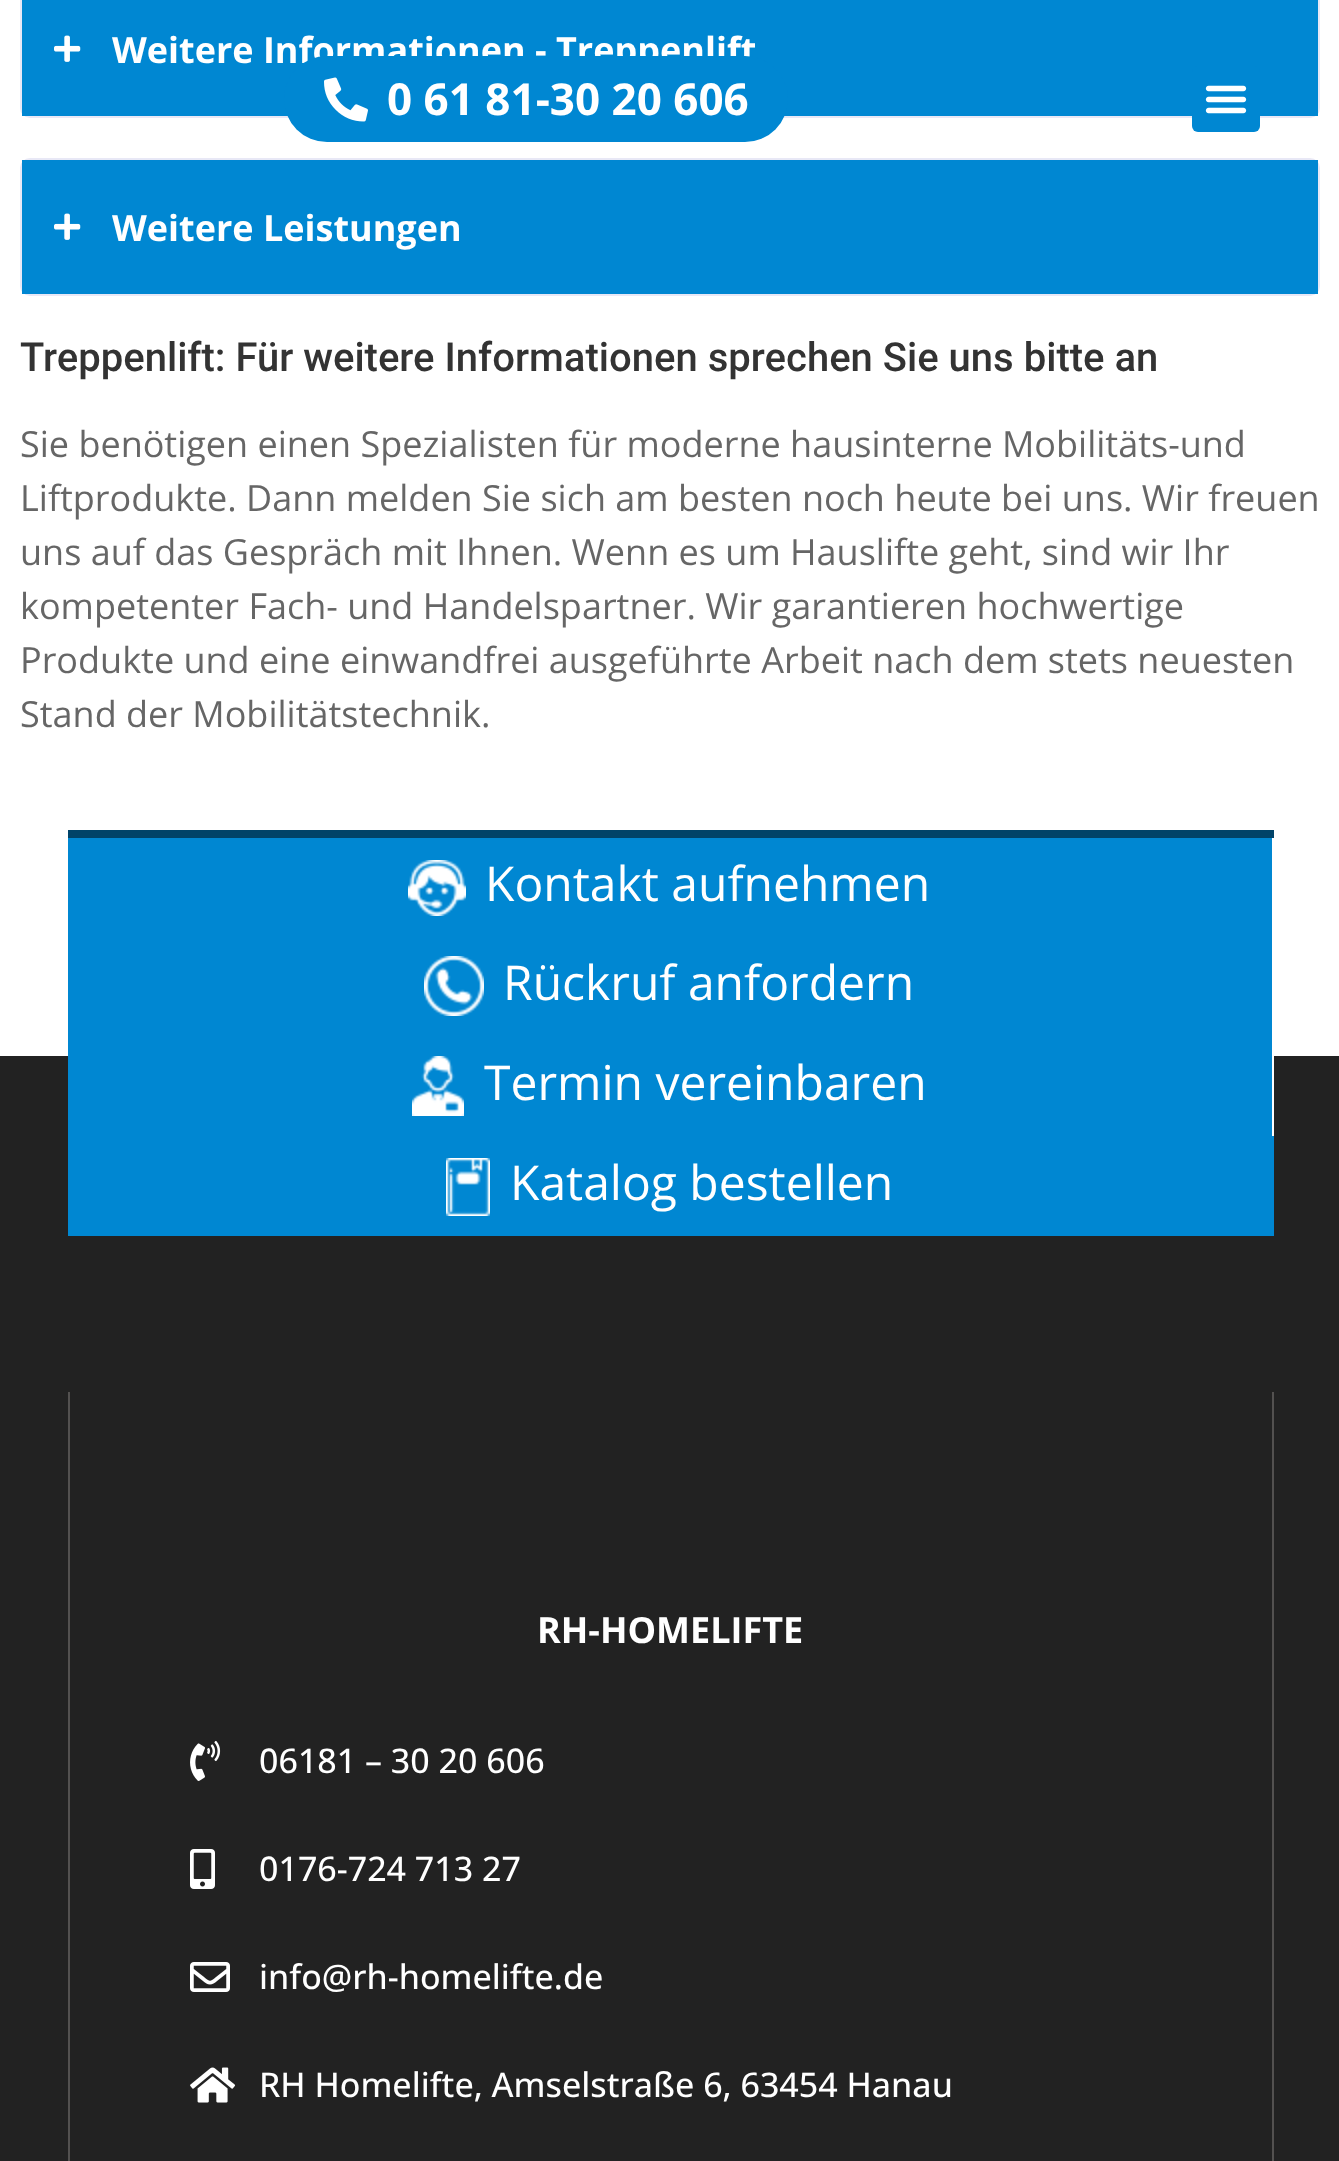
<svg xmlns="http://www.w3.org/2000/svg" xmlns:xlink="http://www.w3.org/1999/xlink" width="1339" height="2161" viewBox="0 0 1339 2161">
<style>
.cls-1{font:bold 36px Open Sans;fill:#ffffff}
.cls-2{font:500 40px Roboto;fill:#333333}
.cls-3{font:36px Open Sans;fill:#666666}
.cls-4{font:bold 44px Open Sans;fill:#ffffff}
.cls-5{font:48px Open Sans;fill:#ffffff}
.cls-6{font:500 34px Open Sans;fill:#ffffff}
</style>
<rect width="100%" height="100%" fill="#ffffff"/>
<rect fill="none" stroke="#e8e8f6" stroke-width="2" x="21" y="-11" width="1298" height="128" rx="9"/>
<rect fill="#0087d2" x="22" y="0" width="1296" height="116"/>
<image xlink:href="image0.png" x="54" y="35" width="27" height="27"/>
<rect fill="none" stroke="#e8e8f6" stroke-width="2" x="21" y="159" width="1298" height="136" rx="9"/>
<rect fill="#0087d2" x="22" y="160" width="1296" height="134"/>
<image xlink:href="image0.png" x="54" y="213" width="27" height="27"/>
<rect fill="#0087d2" x="1192" y="66" width="68" height="66" rx="6"/>
<image xlink:href="image2.png" x="1205" y="85" width="42" height="29"/>
<rect fill="#004369" x="68" y="830" width="1206" height="8"/>
<rect fill="#222222" x="0" y="1056" width="1339" height="1105"/>
<rect fill="#0087d2" x="68" y="838" width="1204" height="298"/>
<image xlink:href="image3.png" x="408" y="860" width="58" height="56"/>
<image xlink:href="image4.png" x="424" y="956" width="60" height="60"/>
<rect fill="#ffffff" x="1272" y="1056" width="2" height="80"/>
<image xlink:href="image5.png" x="412" y="1056" width="52" height="60"/>
<rect fill="#0087d2" x="68" y="1136" width="1206" height="100"/>
<image xlink:href="image6.png" x="446" y="1158" width="44" height="58"/>
<rect fill="#535150" x="1272" y="1392" width="2" height="769"/>
<rect fill="#535150" x="68" y="1392" width="2" height="769"/>
<image xlink:href="image7.png" x="190" y="1740" width="31" height="41"/>
<image xlink:href="image8.png" x="190" y="1849" width="25" height="40"/>
<image xlink:href="image9.png" x="190" y="1962" width="40" height="30"/>
<image xlink:href="image10.png" x="190" y="2067" width="46" height="36"/>
<text class="cls-1" x="112" y="63">Weitere Informationen - Treppenlift</text>
<text class="cls-1" x="112" y="241">Weitere Leistungen</text>
<text class="cls-2" x="20" y="371">Treppenlift: Für weitere Informationen sprechen Sie uns bitte an</text>
<text class="cls-3"><tspan x="20" y="457">Sie benötigen einen Spezialisten für moderne hausinterne Mobilitäts-und</tspan><tspan x="20" y="511">Liftprodukte. Dann melden Sie sich am besten noch heute bei uns. Wir freuen</tspan><tspan x="20" y="565">uns auf das Gespräch mit Ihnen. Wenn es um Hauslifte geht, sind wir Ihr</tspan><tspan x="20" y="619">kompetenter Fach- und Handelspartner. Wir garantieren hochwertige</tspan><tspan x="20" y="673">Produkte und eine einwandfrei ausgeführte Arbeit nach dem stets neuesten</tspan><tspan x="20" y="727">Stand der Mobilitätstechnik.</tspan></text>
<rect fill="#0087d2" x="284" y="56" width="504" height="86" rx="43"/>
<image xlink:href="image1.png" x="324" y="77" width="44" height="45"/>
<text class="cls-4" x="387" y="115">0 61 81-30 20 606</text>
<text class="cls-5" x="485" y="901">Kontakt aufnehmen</text>
<text class="cls-5" x="503" y="1000">Rückruf anfordern</text>
<text class="cls-5" x="484" y="1100">Termin vereinbaren</text>
<text class="cls-5" x="510" y="1200">Katalog bestellen</text>
<text class="cls-1" x="537" y="1643">RH-HOMELIFTE</text>
<text class="cls-6" x="259" y="1773">06181 – 30 20 606</text>
<text class="cls-6" x="259" y="1881">0176-724 713 27</text>
<text class="cls-6" x="259" y="1989">info@rh-homelifte.de</text>
<text class="cls-6" x="259" y="2097">RH Homelifte, Amselstraße 6, 63454 Hanau</text>
</svg>
